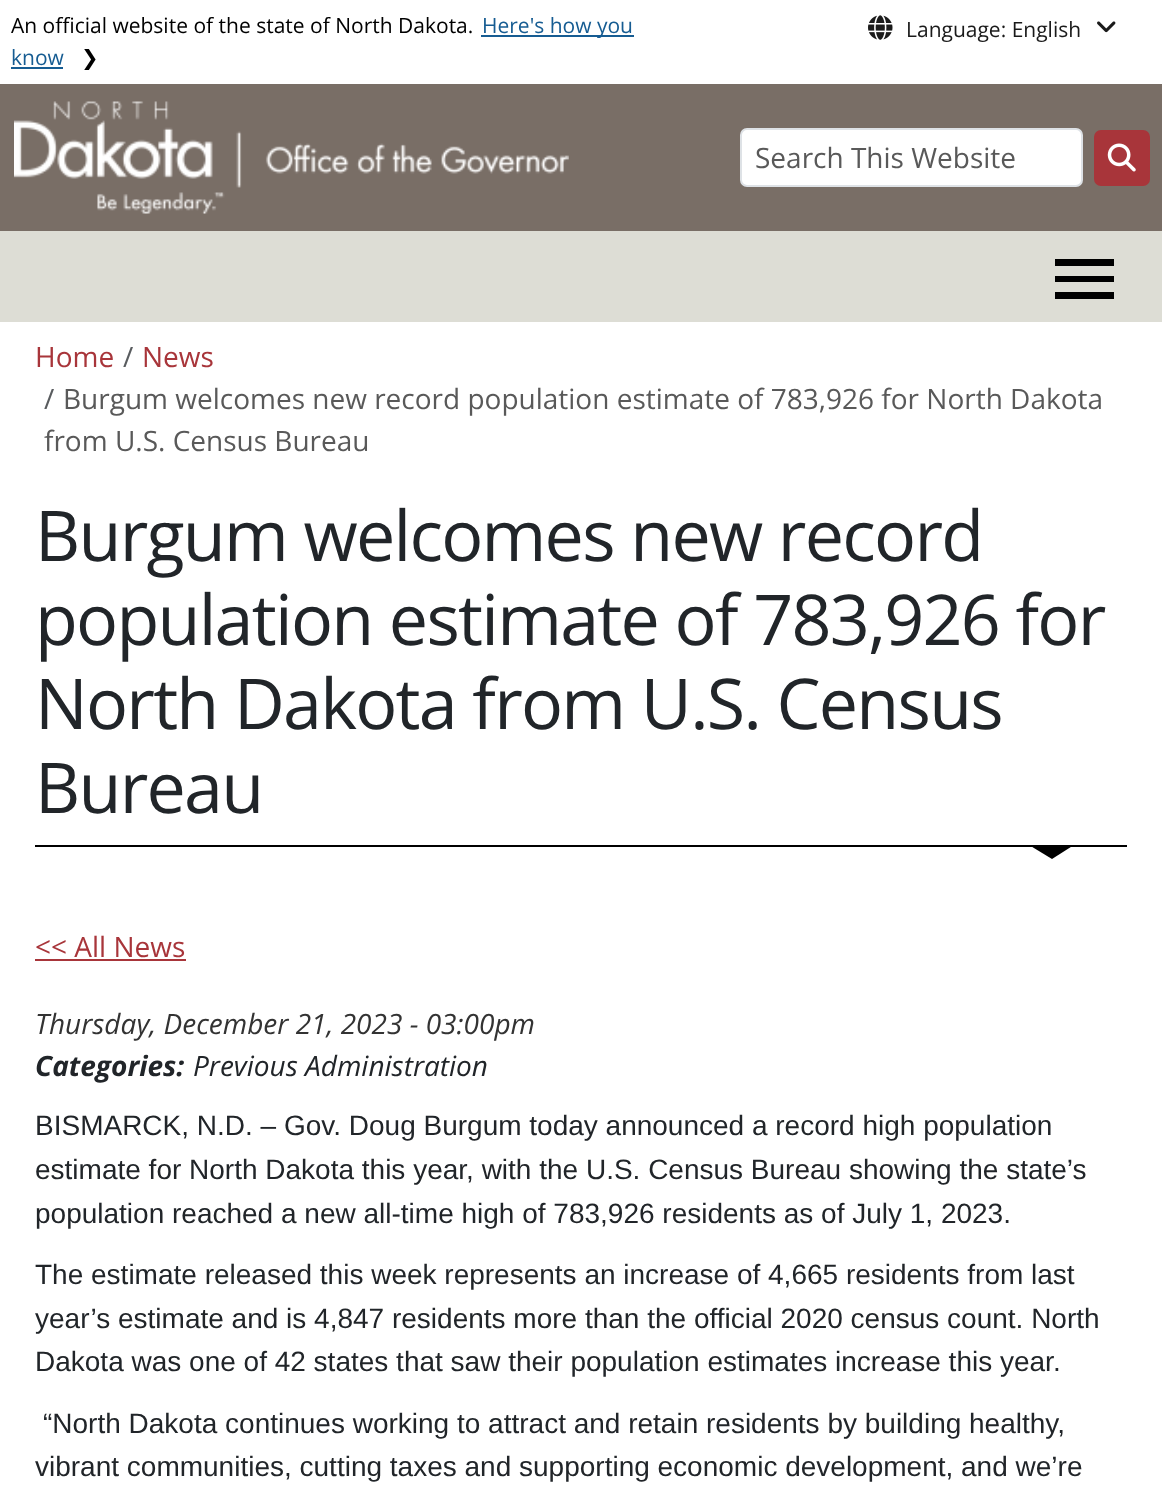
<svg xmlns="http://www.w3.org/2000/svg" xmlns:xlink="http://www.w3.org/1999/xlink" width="1162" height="1498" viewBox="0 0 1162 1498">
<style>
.cls-1{font:21px Open Sans;fill:#000000}
.cls-2{font:21px Open Sans;fill:#165c92}
.cls-3{font:21px DejaVu Sans;fill:#000000}
.cls-4{font:21px Open Sans;fill:#1a1a1a}
.cls-5{font:28px Open Sans;fill:#595959}
.cls-6{font:28px Open Sans;fill:#a8353a}
.cls-7{font:28px Open Sans;fill:#595c5f}
.cls-8{font:70px Open Sans;letter-spacing:-1.75px;fill:#212529}
.cls-9{font:italic 28px Open Sans;fill:#333333}
.cls-10{font:italic bold 28px Open Sans;fill:#212529}
.cls-11{font:italic 28px Open Sans;fill:#212529}
.cls-12{font:28px Liberation Sans;fill:#212529}
</style>
<rect width="100%" height="100%" fill="#ffffff"/>
<rect fill="#165c92" x="481" y="35" width="153" height="2"/>
<rect fill="#165c92" x="11" y="67" width="52" height="2"/>
<image xlink:href="image0.png" x="868" y="15" width="25" height="25"/>
<image xlink:href="image1.png" x="1097" y="21" width="19" height="12"/>
<rect fill="#796e66" x="0" y="84" width="1162" height="147"/>
<image xlink:href="image2.png" x="14" y="101" width="555" height="113"/>
<rect fill="#ffffff" stroke="#dee2e6" stroke-width="2" x="741" y="129" width="341" height="57" rx="6"/>
<rect fill="#a8353a" x="1094" y="130" width="56" height="56" rx="7"/>
<image xlink:href="image3.png" x="1107" y="143" width="29" height="29"/>
<rect fill="#ddddd5" x="0" y="231" width="1162" height="91"/>
<path fill="#000000" d="M1055 299H1114V292H1055ZM1055 282H1114V276H1055ZM1055 259V266H1114V259Z"/>
<rect fill="#000000" x="35" y="845" width="1092" height="2"/>
<path fill="#000000" d="M1029 845H1074L1052 859Z"/>
<rect fill="#a8353a" x="35" y="959" width="151" height="2"/>
<text class="cls-1" x="11" y="33">An official website of the state of North Dakota.</text>
<text class="cls-2" x="482" y="33">Here's how you</text>
<text class="cls-2" x="11" y="65">know</text>
<text class="cls-3" x="81" y="65">❯</text>
<text class="cls-4" x="906" y="37">Language: English</text>
<text class="cls-5" x="755" y="168">Search This Website</text>
<text class="cls-6" x="35" y="367">Home</text>
<text class="cls-7" x="123" y="367">/</text>
<text class="cls-6" x="142" y="367">News</text>
<text class="cls-7" x="44" y="409">/</text>
<text class="cls-5" x="63" y="409">Burgum welcomes new record population estimate of 783,926 for North Dakota</text>
<text class="cls-5" x="44" y="451">from U.S. Census Bureau</text>
<text class="cls-8"><tspan x="35" y="561">Burgum welcomes new record</tspan><tspan x="35" y="645">population estimate of 783,926 for</tspan><tspan x="35" y="729">North Dakota from U.S. Census</tspan><tspan x="35" y="813">Bureau</tspan></text>
<text class="cls-6" x="35" y="957">&lt;&lt; All News</text>
<text class="cls-9" x="35" y="1034">Thursday, December 21, 2023 - 03:00pm</text>
<text class="cls-10" x="35" y="1076">Categories:</text>
<text class="cls-11" x="193" y="1076">Previous Administration</text>
<text class="cls-12"><tspan x="35" y="1135">BISMARCK, N.D. – Gov. Doug Burgum today announced a record high population</tspan><tspan x="35" y="1179">estimate for North Dakota this year, with the U.S. Census Bureau showing the state’s</tspan><tspan x="35" y="1223">population reached a new all-time high of 783,926 residents as of July 1, 2023.</tspan></text>
<text class="cls-12"><tspan x="35" y="1284">The estimate released this week represents an increase of 4,665 residents from last</tspan><tspan x="35" y="1328">year’s estimate and is 4,847 residents more than the official 2020 census count. North</tspan><tspan x="35" y="1371">Dakota was one of 42 states that saw their population estimates increase this year.</tspan></text>
<text class="cls-12" x="43" y="1433">“North Dakota continues working to attract and retain residents by building healthy,</text>
<text class="cls-12" x="35" y="1476">vibrant communities, cutting taxes and supporting economic development, and we’re</text>
</svg>
